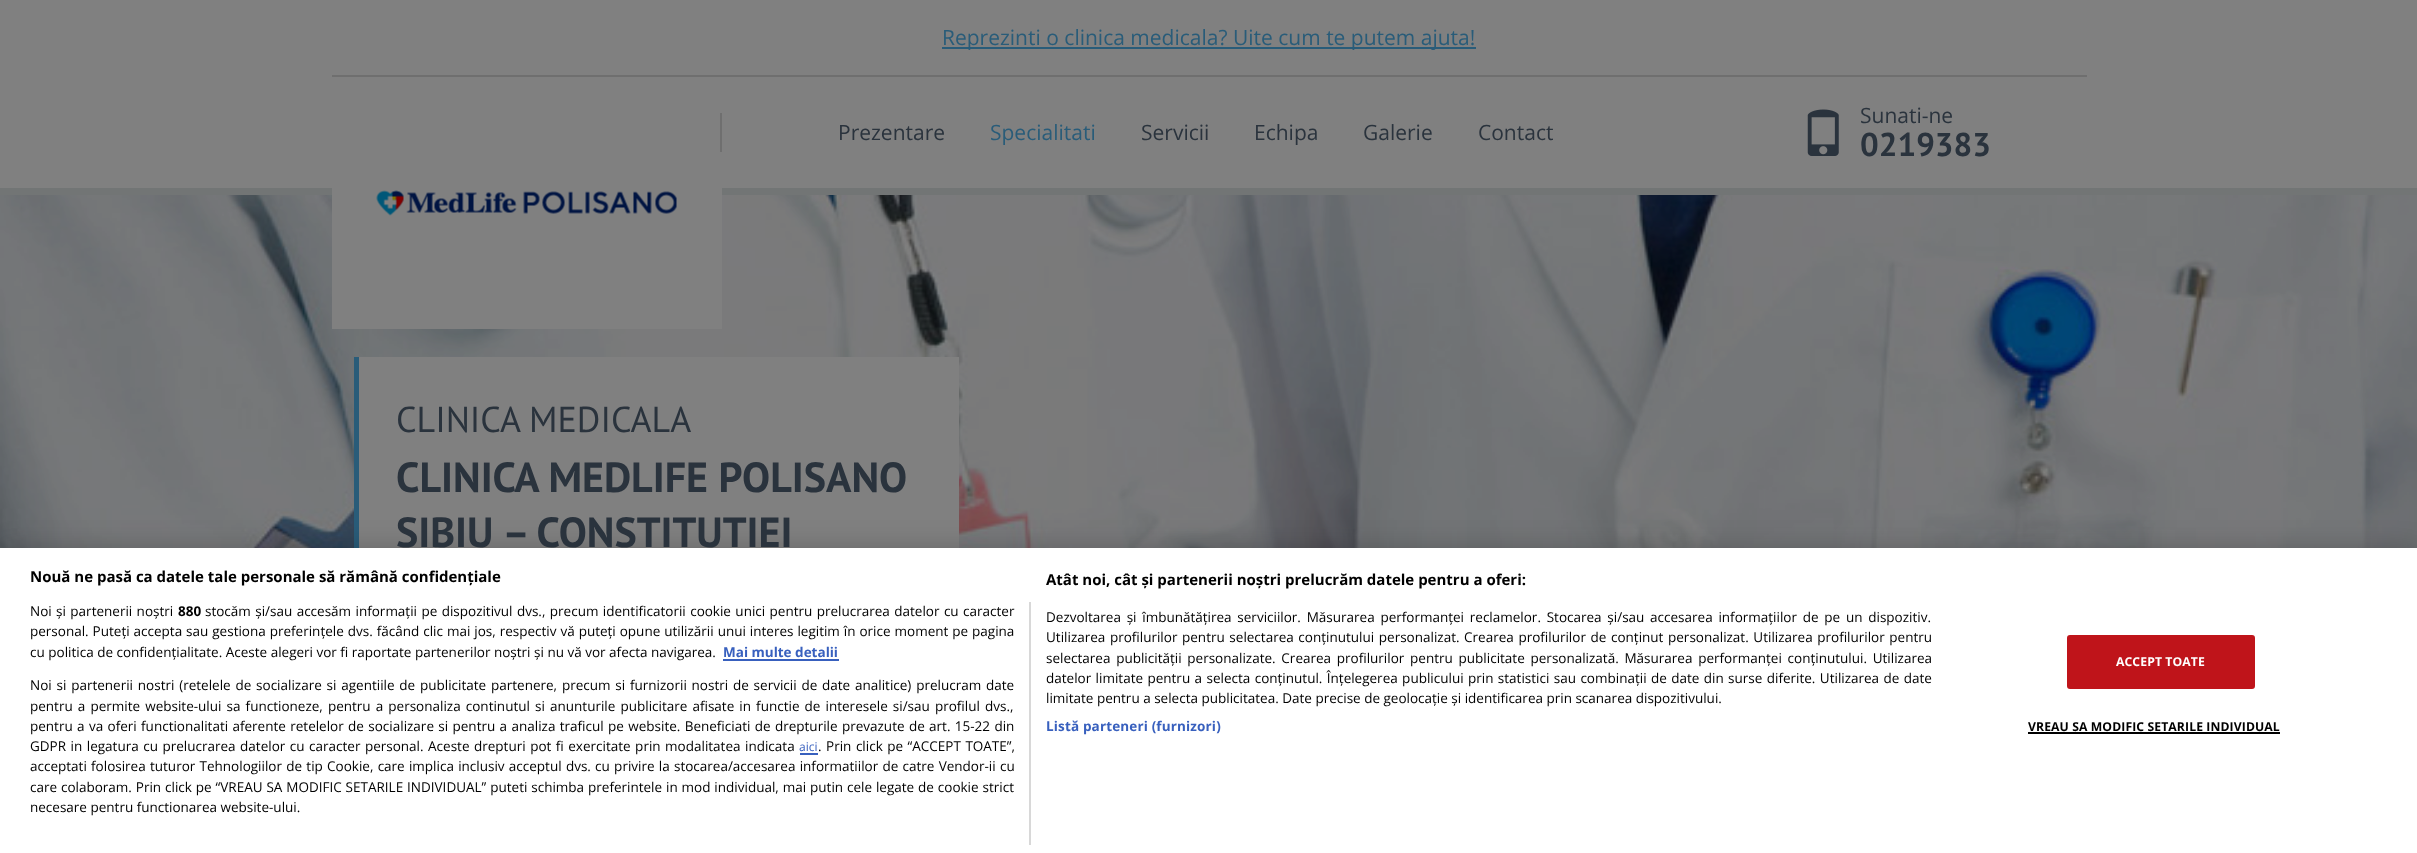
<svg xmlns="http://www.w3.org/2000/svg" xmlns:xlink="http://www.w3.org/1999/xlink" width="2417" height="853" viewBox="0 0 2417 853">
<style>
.cls-1{font:21px Open Sans;fill:#295c79}
.cls-2{font:21px Open Sans;fill:#2a333d}
.cls-3{font:bold 33px PT Sans;fill:#2a333d}
.cls-4{font:36px PT Sans;fill:#2a333d}
.cls-5{font:bold 42px PT Sans;fill:#2a333d}
.cls-6{font:bold 15px Open Sans;fill:#000000}
.cls-7{font:13.5px Open Sans;fill:#000000}
.cls-8{font:bold 13.5px Open Sans;letter-spacing:0.15px;fill:#3860be}
.cls-9{font:bold 13.5px Open Sans;fill:#000000}
.cls-10{font:bold 13.5px Open Sans;fill:#3860be}
.cls-11{font:12px Open Sans;fill:#3860be}
.cls-12{font:bold 12.2px Open Sans;letter-spacing:0.1px;fill:#ffffff}
.cls-13{font:bold 12.2px Open Sans;letter-spacing:0.1px;fill:#000000}
</style>
<rect width="100%" height="100%" fill="#ffffff"/>
<rect fill="#808080" x="0" y="0" width="2417" height="188"/>
<rect fill="#727575" x="0" y="188" width="2417" height="7"/>
<rect fill="#6f6f6f" x="332" y="75" width="1755" height="2"/>
<rect fill="#295c79" x="942" y="47" width="534" height="2"/>
<image xlink:href="image2.png" x="0" y="195" width="2417" height="353"/>
<rect fill="#808080" x="332" y="188" width="390" height="141"/>
<rect fill="#6f6f6f" x="720" y="113" width="2" height="39"/>
<image xlink:href="image0.png" x="376" y="190" width="301" height="26"/>
<image xlink:href="image1.png" x="1807" y="109" width="32" height="47"/>
<rect fill="#808080" x="359" y="357" width="600" height="191"/>
<rect fill="#295c79" x="354" y="357" width="5" height="191"/>
<rect fill="#000000" fill-opacity="0.2" filter="blur(13.5px)" x="0" y="548" width="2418" height="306"/>
<rect fill="#ffffff" x="0" y="548" width="2417" height="305"/>
<rect fill="#d8d8d8" x="1029" y="602" width="2" height="243"/>
<rect fill="#3860be" x="723" y="659" width="116" height="2"/>
<rect fill="#3860be" x="800" y="753" width="18" height="2"/>
<rect fill="#bf141a" stroke="#bf141a" stroke-width="2" x="2068" y="636" width="186" height="52" rx="2"/>
<rect fill="#000000" x="2028" y="732" width="252" height="2"/>
<text class="cls-1" x="942" y="45">Reprezinti o clinica medicala? Uite cum te putem ajuta!</text>
<text class="cls-2" x="838" y="140">Prezentare</text>
<text class="cls-1" x="990" y="140">Specialitati</text>
<text class="cls-2" x="1141" y="140">Servicii</text>
<text class="cls-2" x="1254" y="140">Echipa</text>
<text class="cls-2" x="1363" y="140">Galerie</text>
<text class="cls-2" x="1478" y="140">Contact</text>
<text class="cls-2" x="1860" y="123">Sunati-ne</text>
<text class="cls-3" x="1860" y="156">0219383</text>
<text class="cls-4" x="396" y="432">CLINICA MEDICALA</text>
<text class="cls-5"><tspan x="396" y="492">CLINICA MEDLIFE POLISANO</tspan><tspan x="396" y="547">SIBIU – CONSTITUTIEI</tspan></text>
<text class="cls-6" x="30" y="582">Nouă ne pasă ca datele tale personale să rămână confidențiale</text>
<text class="cls-6" x="1046" y="585">Atât noi, cât și partenerii noștri prelucrăm datele pentru a oferi:</text>
<text class="cls-7"><tspan x="1046" y="622" word-spacing="2.25">Dezvoltarea și îmbunătățirea serviciilor. Măsurarea performanței reclamelor. Stocarea și/sau accesarea informațiilor de pe un dispozitiv.</tspan><tspan x="1046" y="642" word-spacing="1.1">Utilizarea profilurilor pentru selectarea conținutului personalizat. Crearea profilurilor de conținut personalizat. Utilizarea profilurilor pentru</tspan><tspan x="1046" y="663" word-spacing="2.25">selectarea publicității personalizate. Crearea profilurilor pentru publicitate personalizată. Măsurarea performanței conținutului. Utilizarea</tspan><tspan x="1046" y="683" word-spacing="0.9">datelor limitate pentru a selecta conținutul. Înțelegerea publicului prin statistici sau combinații de date din surse diferite. Utilizarea de date</tspan><tspan x="1046" y="703">limitate pentru a selecta publicitatea. Date precise de geolocație și identificarea prin scanarea dispozitivului.</tspan></text>
<text class="cls-8" x="1046" y="731">Listă parteneri (furnizori)</text>
<text class="cls-7" x="30" y="616" word-spacing="0.9">Noi și partenerii noștri</text>
<text class="cls-9" x="178" y="616">880</text>
<text class="cls-7" x="205" y="616" word-spacing="0.9">stocăm și/sau accesăm informații pe dispozitivul dvs., precum identificatorii cookie unici pentru prelucrarea datelor cu caracter</text>
<text class="cls-7"><tspan x="30" y="636" word-spacing="0.45">personal. Puteți accepta sau gestiona preferințele dvs. făcând clic mai jos, respectiv vă puteți opune utilizării unui interes legitim în orice moment pe pagina</tspan><tspan x="30" y="657">cu politica de confidențialitate. Aceste alegeri vor fi raportate partenerilor noștri și nu vă vor afecta navigarea.</tspan></text>
<text class="cls-10" x="723" y="657">Mai multe detalii</text>
<text class="cls-7"><tspan x="30" y="690" word-spacing="1.3">Noi si partenerii nostri (retelele de socializare si agentiile de publicitate partenere, precum si furnizorii nostri de servicii de date analitice) prelucram date</tspan><tspan x="30" y="711" word-spacing="1.6">pentru a permite website-ului sa functioneze, pentru a personaliza continutul si anunturile publicitare afisate in functie de interesele si/sau profilul dvs.,</tspan><tspan x="30" y="731" word-spacing="0.85">pentru a va oferi functionalitati aferente retelelor de socializare si pentru a analiza traficul pe website. Beneficiati de drepturile prevazute de art. 15-22 din</tspan><tspan x="30" y="751" word-spacing="1">GDPR in legatura cu prelucrarea datelor cu caracter personal. Aceste drepturi pot fi exercitate prin modalitatea indicata</tspan></text>
<text class="cls-11" x="799" y="751">aici</text>
<text class="cls-7" x="818" y="751" word-spacing="1">. Prin click pe “ACCEPT TOATE”,</text>
<text class="cls-7"><tspan x="30" y="771" word-spacing="0.75">acceptati folosirea tuturor Tehnologiilor de tip Cookie, care implica inclusiv acceptul dvs. cu privire la stocarea/accesarea informatiilor de catre Vendor-ii cu</tspan><tspan x="30" y="792" word-spacing="0.4">care colaboram. Prin click pe “VREAU SA MODIFIC SETARILE INDIVIDUAL” puteti schimba preferintele in mod individual, mai putin cele legate de cookie strict</tspan><tspan x="30" y="812">necesare pentru functionarea website-ului.</tspan></text>
<text class="cls-12" x="2116" y="666">ACCEPT TOATE</text>
<text class="cls-13" x="2028" y="731">VREAU SA MODIFIC SETARILE INDIVIDUAL</text>
</svg>
